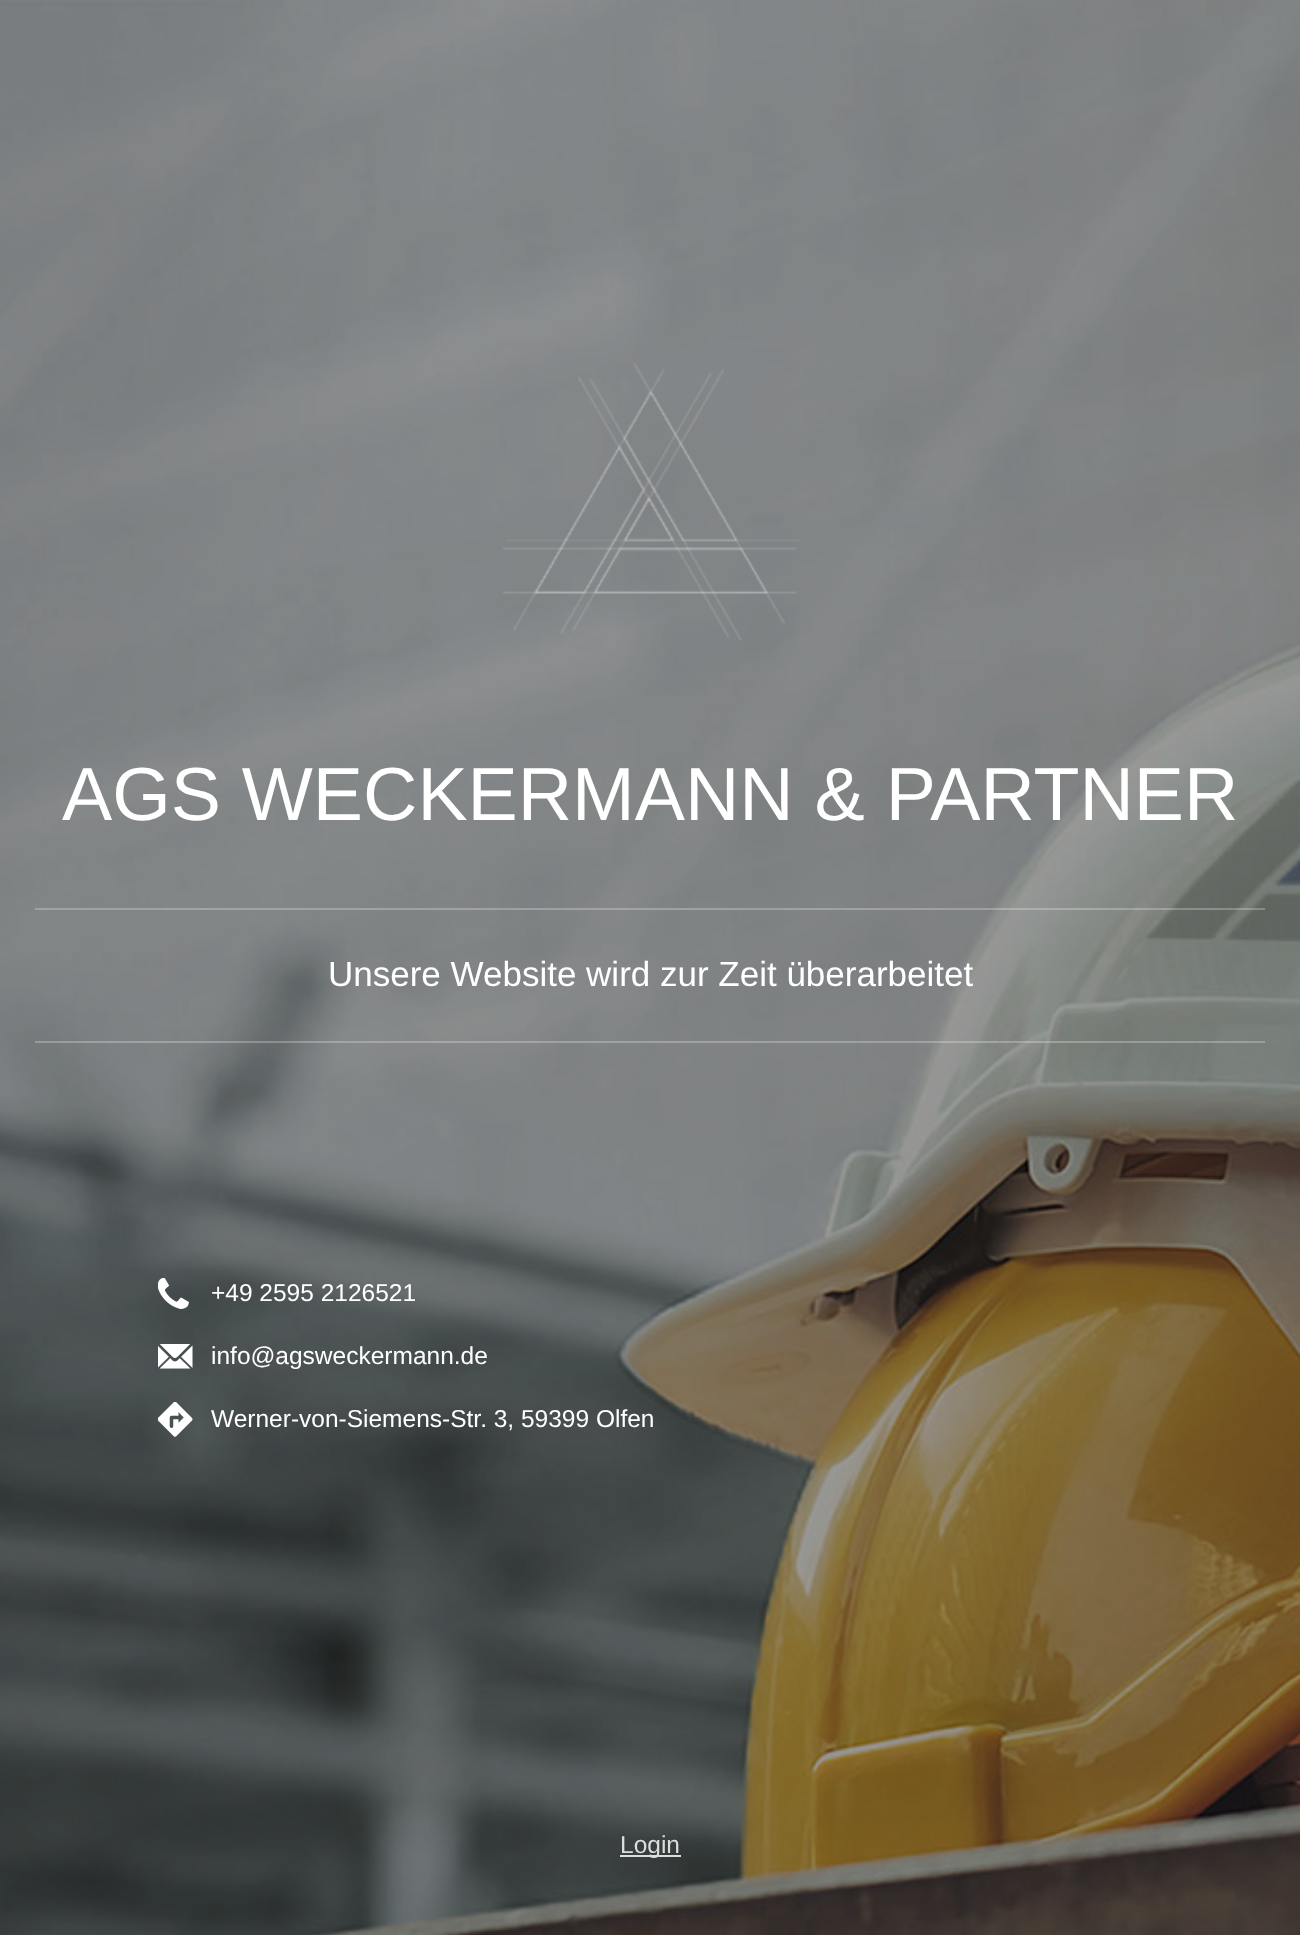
<svg xmlns="http://www.w3.org/2000/svg" xmlns:xlink="http://www.w3.org/1999/xlink" width="1300" height="1935" viewBox="0 0 1300 1935">
<style>
.cls-1{font:75.25px Liberation Sans;fill:#ffffff}
.cls-2{font:35px Liberation Sans;fill:#ffffff}
.cls-3{font:24.5px Liberation Sans;fill:#ffffff}
.cls-4{font:24.5px Liberation Sans;fill:#dddddd}
</style>
<rect width="100%" height="100%" fill="#ffffff"/>
<image xlink:href="image0.png" x="0" y="0" width="1300" height="1935"/>
<image xlink:href="image1.png" x="502" y="363" width="298" height="278"/>
<rect fill="#ffffff" fill-opacity="0.25" x="35" y="908" width="1230" height="2"/>
<rect fill="#ffffff" fill-opacity="0.25" x="35" y="1041" width="1230" height="2"/>
<image xlink:href="image2.png" x="158" y="1278" width="31" height="31"/>
<image xlink:href="image3.png" x="158" y="1344" width="35" height="25"/>
<image xlink:href="image4.png" x="158" y="1402" width="35" height="35"/>
<rect fill="#dddddd" x="620" y="1855" width="61" height="2"/>
<text class="cls-1" x="62" y="820">AGS WECKERMANN &amp; PARTNER</text>
<text class="cls-2" x="328" y="986">Unsere Website wird zur Zeit überarbeitet</text>
<text class="cls-3" x="211" y="1301">+49 2595 2126521</text>
<text class="cls-3" x="211" y="1364">info@agsweckermann.de</text>
<text class="cls-3" x="211" y="1427">Werner-von-Siemens-Str. 3, 59399 Olfen</text>
<text class="cls-4" x="620" y="1853">Login</text>
</svg>
